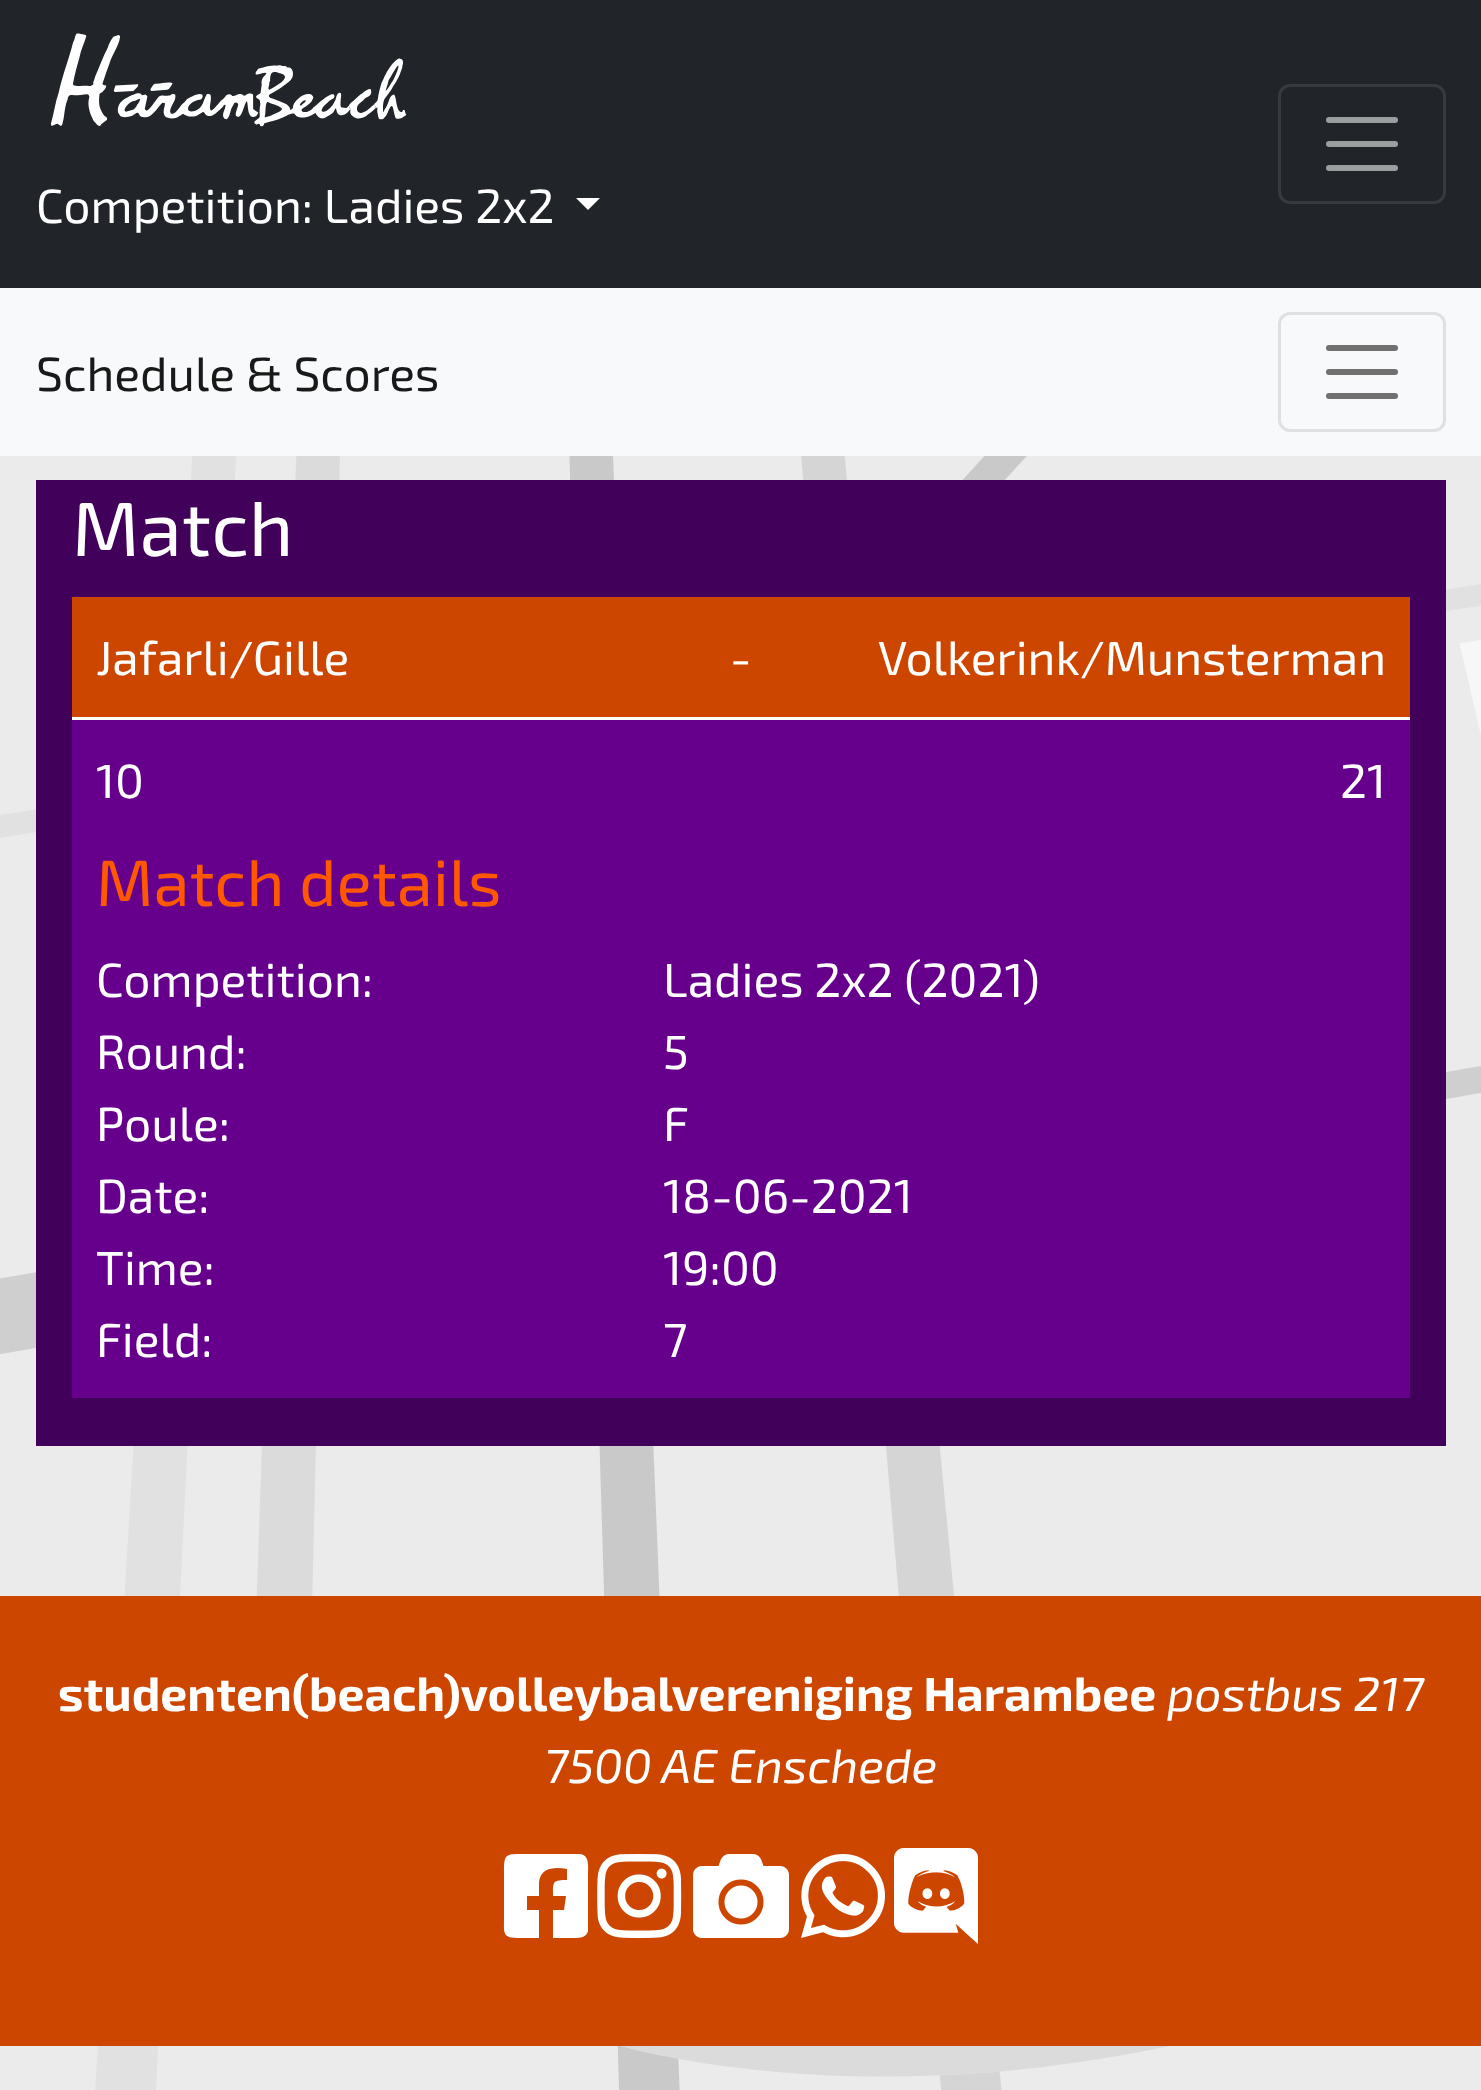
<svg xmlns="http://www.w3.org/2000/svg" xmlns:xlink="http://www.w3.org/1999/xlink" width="1481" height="2090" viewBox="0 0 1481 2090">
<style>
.cls-1{font:48px 'Exo 2';fill:#ffffff}
.cls-2{font:48px 'Exo 2';fill:#191919}
.cls-3{font:77px 'Exo 2';fill:#ffffff}
.cls-4{font:65.5px 'Exo 2';fill:#ff5800}
.cls-5{font:bold 48px 'Exo 2';fill:#ffffff}
.cls-6{font:italic 48px 'Exo 2';fill:#ffffff}
</style>
<rect width="100%" height="100%" fill="#ffffff"/>
<image xlink:href="image0.png" x="0" y="456" width="1481" height="1634"/>
<rect fill="#212529" x="0" y="0" width="1481" height="288"/>
<rect fill="none" stroke="#373b3e" stroke-width="3" x="1279.5" y="85.5" width="165" height="117" rx="10.5"/>
<path fill="none" stroke="#9b9d9f" stroke-width="6" stroke-linecap="round" d="M1329 120H1395M1329 144H1395M1329 168H1395"/>
<image xlink:href="image1.png" x="51" y="33" width="356" height="94"/>
<path fill="#ffffff" d="M576 198H600L588 210Z"/>
<rect fill="#f8f9fa" x="0" y="288" width="1481" height="168"/>
<rect fill="none" stroke="#dfe0e1" stroke-width="3" x="1279.5" y="313.5" width="165" height="117" rx="10.5"/>
<path fill="none" stroke="#707071" stroke-width="6" stroke-linecap="round" d="M1329 348H1395M1329 372H1395M1329 396H1395"/>
<rect fill="#410059" x="36" y="480" width="1410" height="966"/>
<rect fill="#cc4600" x="72" y="597" width="1338" height="120"/>
<rect fill="#ffffff" x="72" y="717" width="1338" height="3"/>
<rect fill="#66008c" x="72" y="720" width="1338" height="678"/>
<rect fill="#cc4600" x="0" y="1596" width="1481" height="450"/>
<path fill="#ffffff" d="M579 1854C590 1854 588 1867 588 1874V1931C586 1939 577 1938 570 1938H553V1910H564L566 1896H553C553 1882 552 1880 567 1880V1869C555 1867 541 1867 539 1882V1896H527V1910H539V1938H517C502 1938 504 1932 504 1918V1874C504 1854 504 1854 524 1854Z"/>
<image xlink:href="image2.png" x="597" y="1854" width="85" height="84"/>
<image xlink:href="image3.png" x="693" y="1854" width="96" height="84"/>
<image xlink:href="image4.png" x="801" y="1854" width="84" height="84"/>
<image xlink:href="image5.png" x="894" y="1848" width="84" height="96"/>
<text class="cls-1" x="36" y="223">Competition: Ladies 2x2</text>
<text class="cls-2" x="36" y="391">Schedule &amp; Scores</text>
<text class="cls-3" x="72" y="556">Match</text>
<text class="cls-1" x="96" y="675">Jafarli/Gille</text>
<text class="cls-1" x="730" y="675">-</text>
<text class="cls-1" x="878" y="675">Volkerink/Munsterman</text>
<text class="cls-1" x="96" y="798">10</text>
<text class="cls-1" x="1340" y="798">21</text>
<text class="cls-4" x="96" y="906">Match details</text>
<text class="cls-1"><tspan x="96" y="997">Competition:</tspan><tspan x="96" y="1069">Round:</tspan><tspan x="96" y="1141">Poule:</tspan><tspan x="96" y="1213">Date:</tspan><tspan x="96" y="1285">Time:</tspan><tspan x="96" y="1357">Field:</tspan></text>
<text class="cls-1"><tspan x="663" y="997">Ladies 2x2 (2021)</tspan><tspan x="663" y="1069">5</tspan><tspan x="663" y="1141">F</tspan><tspan x="663" y="1213">18-06-2021</tspan><tspan x="663" y="1285">19:00</tspan><tspan x="663" y="1357">7</tspan></text>
<text class="cls-5" x="58" y="1711">studenten(beach)volleybalvereniging Harambee</text>
<text class="cls-6" x="1167" y="1711">postbus 217</text>
<text class="cls-6" x="544" y="1783">7500 AE Enschede</text>
</svg>
